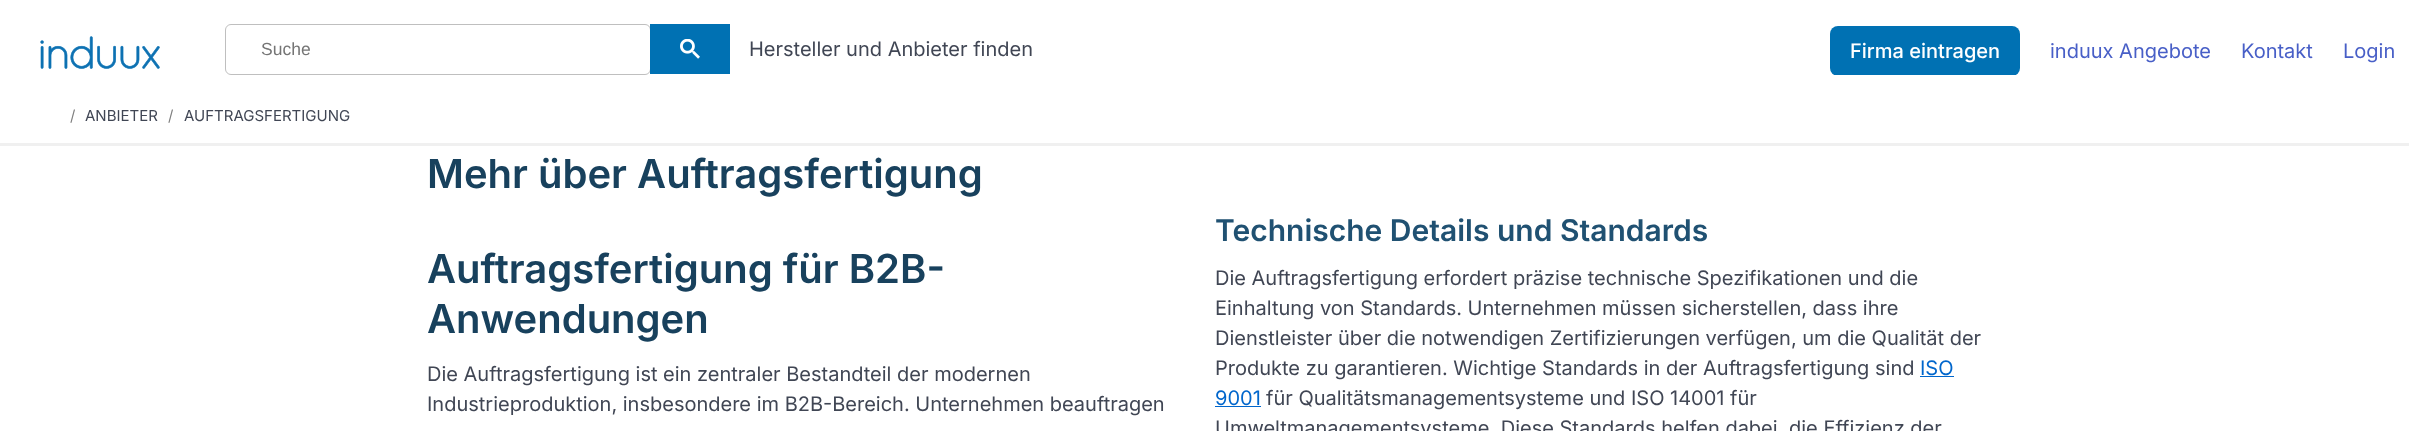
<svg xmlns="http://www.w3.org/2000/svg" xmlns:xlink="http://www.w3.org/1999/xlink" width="2409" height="431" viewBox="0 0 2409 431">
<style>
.cls-1{font:17.5px Liberation Sans;fill:#757575}
.cls-2{font:20px Inter;fill:#404654}
.cls-3{font:500 20px Inter;fill:#ffffff}
.cls-4{font:20px Inter;fill:#485fc7}
.cls-5{font:15px Inter;fill:#808080}
.cls-6{font:15px Inter;fill:#404654}
.cls-7{font:600 40px Inter;fill:#18415d}
.cls-8{font:600 30px Inter;fill:#205172}
.cls-9{font:20px Inter;fill:#0066cc}
</style>
<rect width="100%" height="100%" fill="#ffffff"/>
<image xlink:href="image0.png" x="40" y="36" width="120" height="33"/>
<rect fill="none" stroke="#bfbfbf" x="225.5" y="24.5" width="425" height="50" rx="5.5"/>
<rect fill="#0071b3" x="650" y="24" width="80" height="50"/>
<image xlink:href="image1.png" x="680" y="39" width="20" height="20"/>
<rect fill="#0071b3" x="1830" y="26" width="190" height="50" rx="8"/>
<rect fill="#ffffff" x="1834" y="75" width="182" height="1"/>
<rect fill="#f0f0f0" x="0" y="143" width="2409" height="3"/>
<rect fill="#0066cc" x="1920" y="376" width="34" height="1"/>
<rect fill="#0066cc" x="1215" y="406" width="46" height="1"/>
<text class="cls-1" x="261" y="55">Suche</text>
<text class="cls-2" x="749" y="56">Hersteller und Anbieter finden</text>
<text class="cls-3" x="1850" y="58">Firma eintragen</text>
<text class="cls-4" x="2050" y="58">induux Angebote</text>
<text class="cls-4" x="2241" y="58">Kontakt</text>
<text class="cls-4" x="2343" y="58">Login</text>
<text class="cls-5" x="70" y="121">/</text>
<text class="cls-6" x="85" y="121">ANBIETER</text>
<text class="cls-5" x="168" y="121">/</text>
<text class="cls-6" x="184" y="121">AUFTRAGSFERTIGUNG</text>
<text class="cls-7" x="427" y="188">Mehr über Auftragsfertigung</text>
<text class="cls-8" x="1215" y="241">Technische Details und Standards</text>
<text class="cls-7"><tspan x="427" y="283">Auftragsfertigung für B2B-</tspan><tspan x="427" y="333">Anwendungen</tspan></text>
<text class="cls-2"><tspan x="1215" y="285">Die Auftragsfertigung erfordert präzise technische Spezifikationen und die</tspan><tspan x="1215" y="315">Einhaltung von Standards. Unternehmen müssen sicherstellen, dass ihre</tspan><tspan x="1215" y="345">Dienstleister über die notwendigen Zertifizierungen verfügen, um die Qualität der</tspan><tspan x="1215" y="375">Produkte zu garantieren. Wichtige Standards in der Auftragsfertigung sind</tspan></text>
<text class="cls-9" x="1920" y="375">ISO</text>
<text class="cls-9" x="1215" y="405">9001</text>
<text class="cls-2" x="1266" y="405">für Qualitätsmanagementsysteme und ISO 14001 für</text>
<text class="cls-2" x="1215" y="435">Umweltmanagementsysteme. Diese Standards helfen dabei, die Effizienz der</text>
<text class="cls-2"><tspan x="427" y="381">Die Auftragsfertigung ist ein zentraler Bestandteil der modernen</tspan><tspan x="427" y="411">Industrieproduktion, insbesondere im B2B-Bereich. Unternehmen beauftragen</tspan></text>
</svg>
